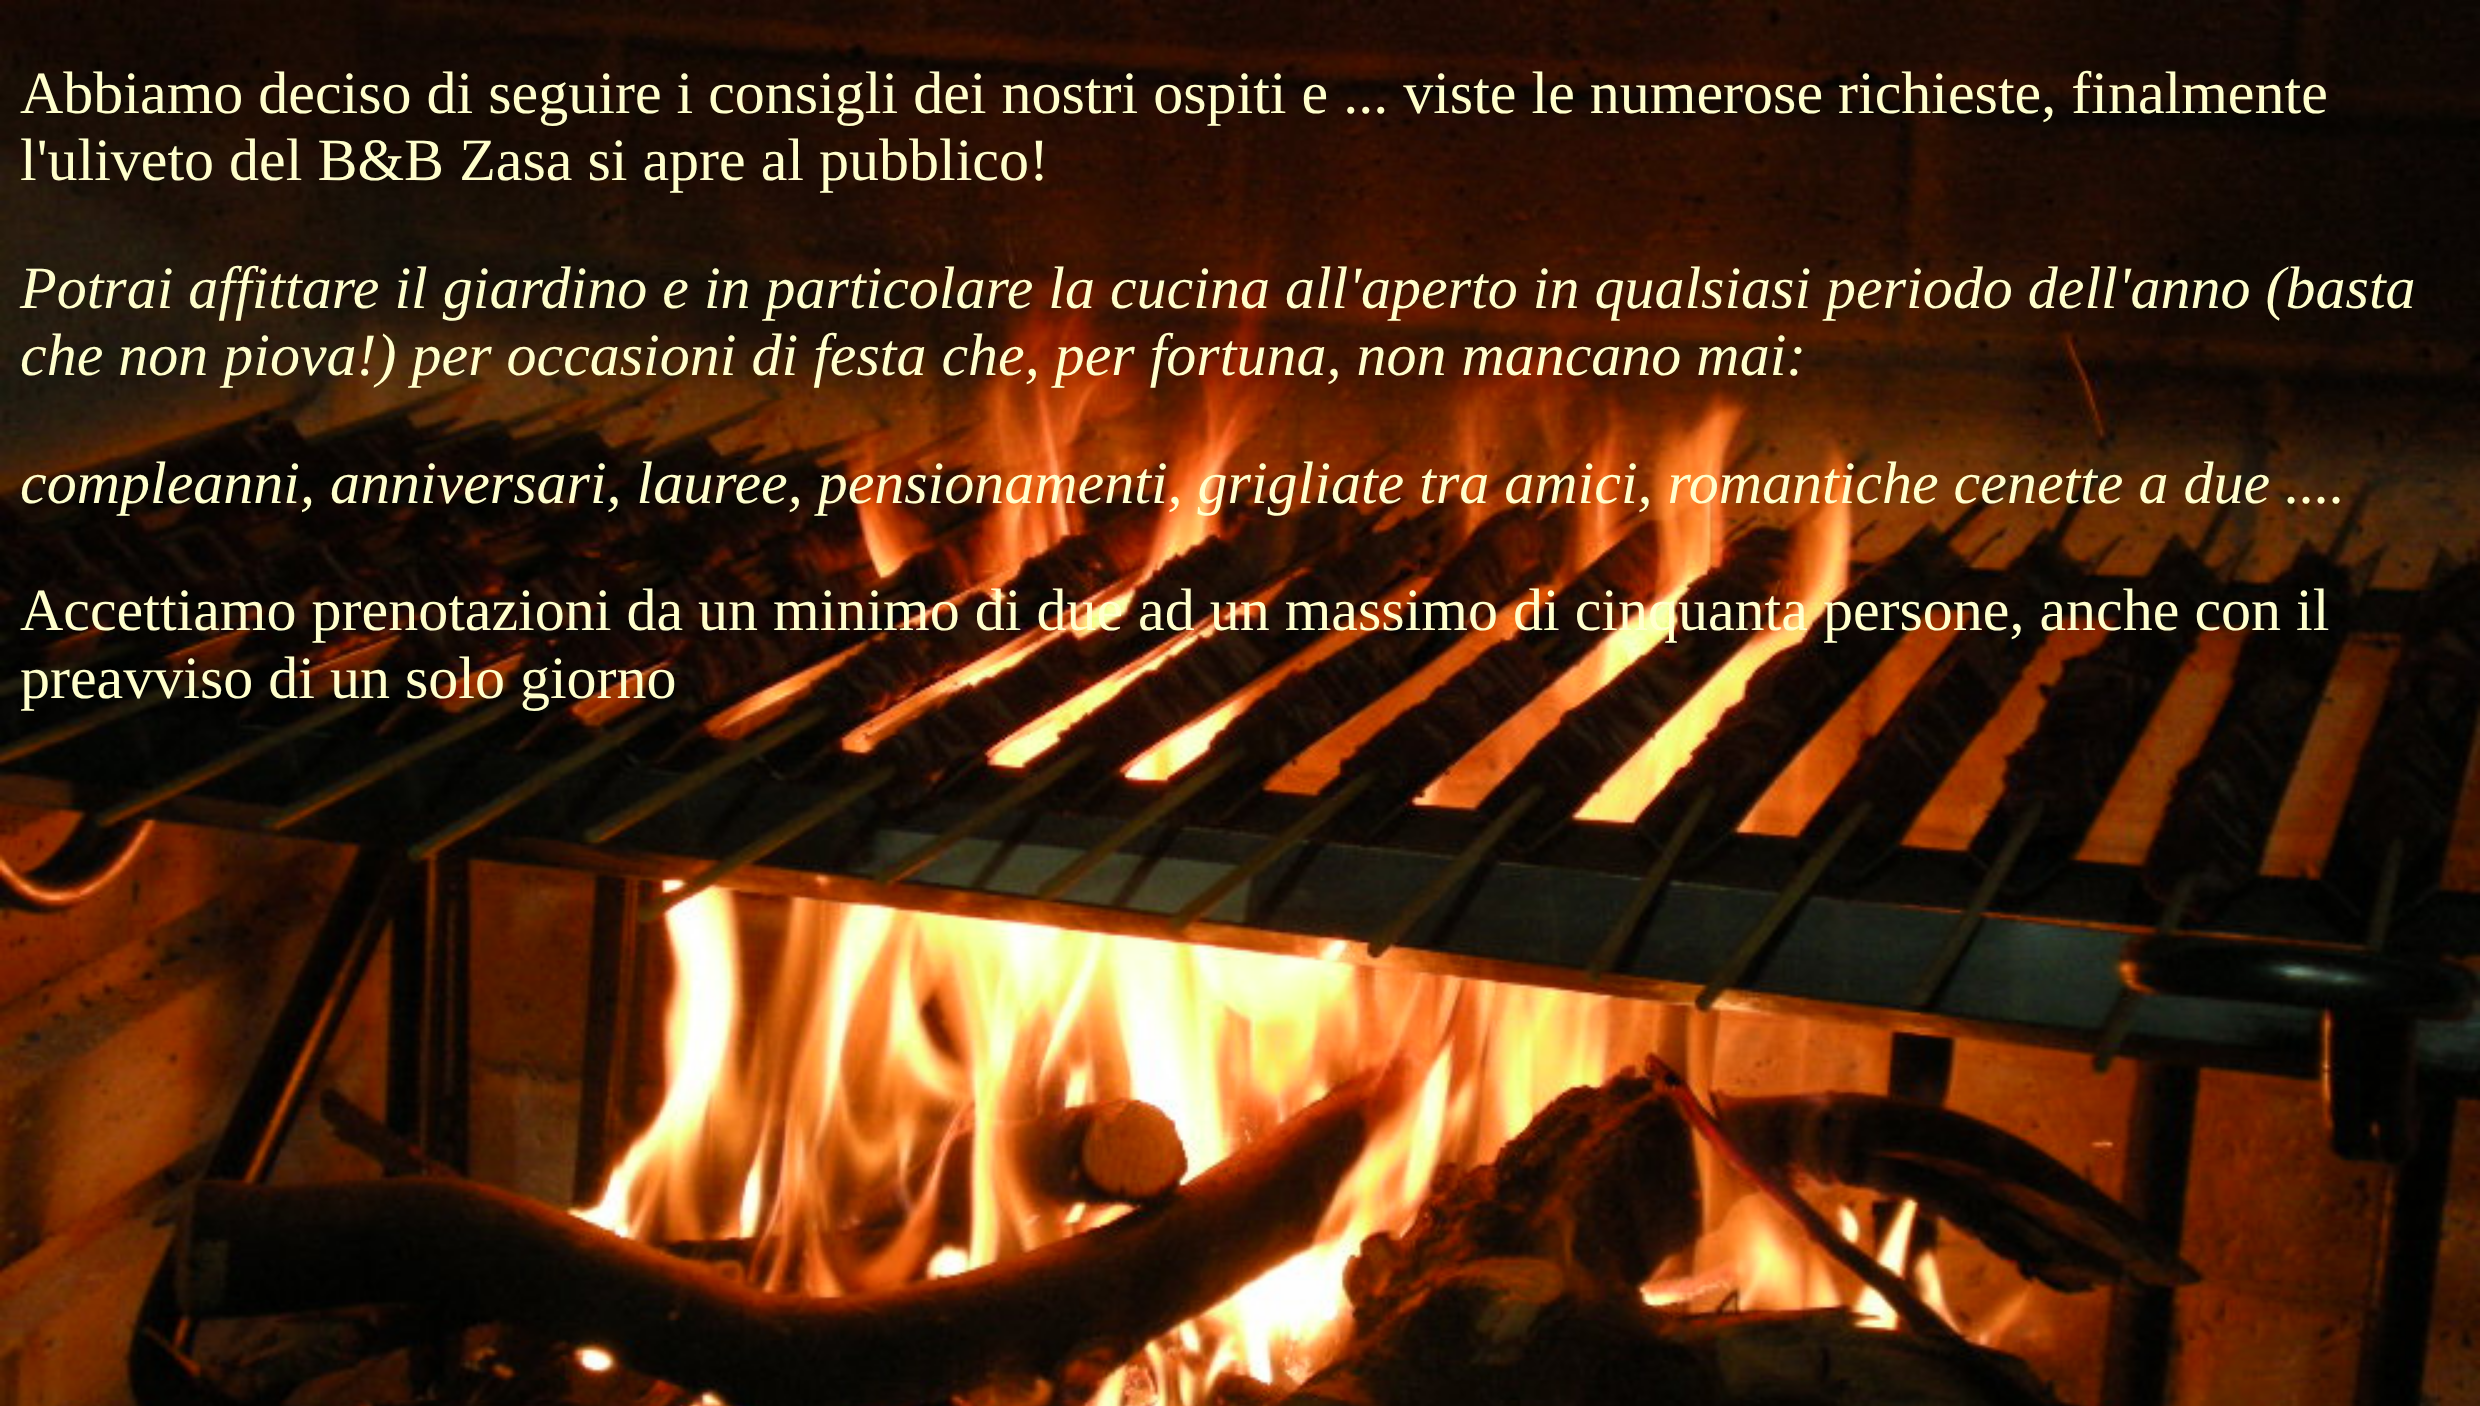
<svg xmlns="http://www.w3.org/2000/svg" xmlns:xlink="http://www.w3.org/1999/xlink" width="2480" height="1406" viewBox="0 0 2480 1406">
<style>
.cls-1{font:60px Liberation Serif;fill:#ffffcc}
.cls-2{font:italic 60px Liberation Serif;fill:#ffffcc}
</style>
<rect width="100%" height="100%" fill="#ffffff"/>
<image xlink:href="image0.png" x="0" y="0" width="2480" height="1406"/>
<text class="cls-1"><tspan x="20" y="113">Abbiamo deciso di seguire i consigli dei nostri ospiti e ... viste le numerose richieste, finalmente</tspan><tspan x="20" y="180">l'uliveto del B&amp;B Zasa si apre al pubblico!</tspan></text>
<text class="cls-2"><tspan x="20" y="308">Potrai affittare il giardino e in particolare la cucina all'aperto in qualsiasi periodo dell'anno (basta</tspan><tspan x="20" y="375">che non piova!) per occasioni di festa che, per fortuna, non mancano mai:</tspan></text>
<text class="cls-2" x="20" y="503">compleanni, anniversari, lauree, pensionamenti, grigliate tra amici, romantiche cenette a due ....</text>
<text class="cls-1"><tspan x="20" y="630">Accettiamo prenotazioni da un minimo di due ad un massimo di cinquanta persone, anche con il</tspan><tspan x="20" y="698">preavviso di un solo giorno</tspan></text>
</svg>
